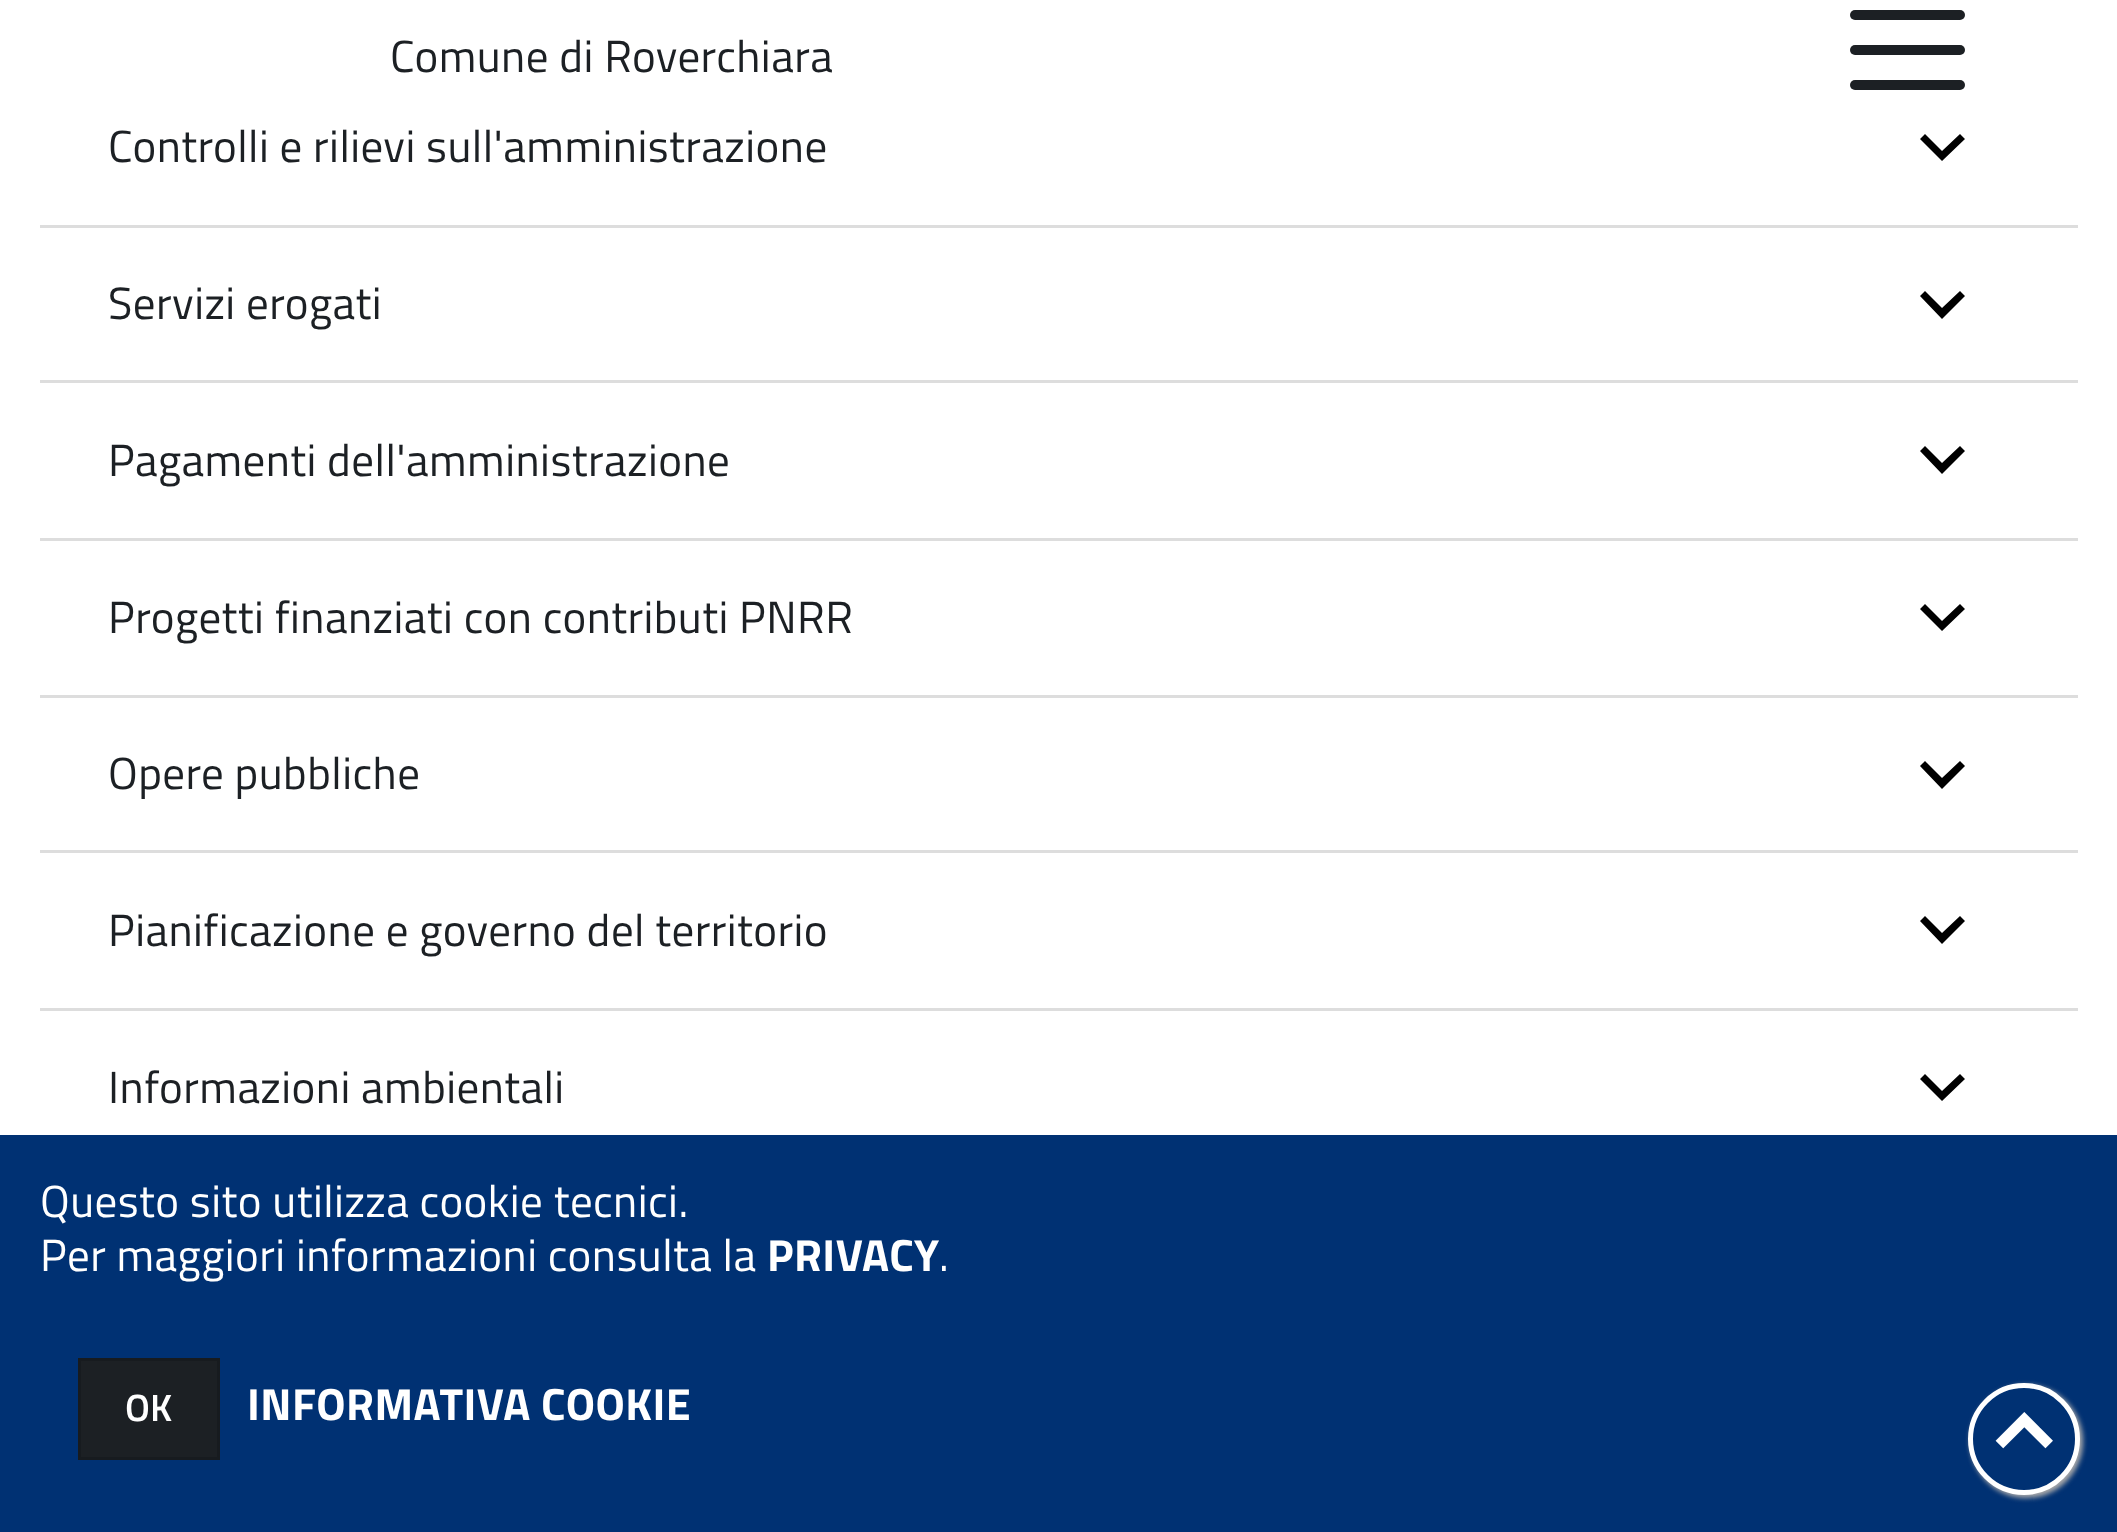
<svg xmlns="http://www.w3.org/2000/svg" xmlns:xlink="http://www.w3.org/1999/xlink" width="2117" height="1532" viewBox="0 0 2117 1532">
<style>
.cls-1{font:45px Titillium Web;letter-spacing:0.45px;fill:#1c2024}
.cls-2{font:45px Titillium Web;letter-spacing:0.45px;fill:#ffffff}
.cls-3{font:bold 45px Titillium Web;letter-spacing:0.45px;fill:#ffffff}
.cls-4{font:600 38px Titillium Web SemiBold;fill:#ffffff}
.cls-5{font:bold 55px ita;fill:#ffffff}
</style>
<rect width="100%" height="100%" fill="#ffffff"/>
<rect fill="#1c2024" x="1850" y="45" width="115" height="10" rx="5"/>
<rect fill="#1c2024" x="1850" y="10" width="115" height="10" rx="5"/>
<rect fill="#1c2024" x="1850" y="80" width="115" height="10" rx="5"/>
<path fill="#000000" d="M1925 134L1920 139L1942 161L1965 139L1960 134L1942 151Z"/>
<rect fill="#dddddd" x="40" y="225" width="2038" height="3"/>
<path fill="#000000" d="M1925 291L1920 296L1942 319L1965 296L1960 291L1942 308Z"/>
<rect fill="#dddddd" x="40" y="380" width="2038" height="3"/>
<path fill="#000000" d="M1925 446L1920 451L1942 474L1965 451L1960 446L1942 463Z"/>
<rect fill="#dddddd" x="40" y="538" width="2038" height="3"/>
<path fill="#000000" d="M1925 604L1920 609L1942 631L1965 609L1960 604L1942 621Z"/>
<rect fill="#dddddd" x="40" y="695" width="2038" height="3"/>
<path fill="#000000" d="M1925 761L1920 766L1942 789L1965 766L1960 761L1942 778Z"/>
<rect fill="#dddddd" x="40" y="850" width="2038" height="3"/>
<path fill="#000000" d="M1925 916L1920 921L1942 944L1965 921L1960 916L1942 933Z"/>
<rect fill="#dddddd" x="40" y="1008" width="2038" height="3"/>
<path fill="#000000" d="M1925 1074L1920 1079L1942 1101L1965 1079L1960 1074L1942 1091Z"/>
<rect fill="#003173" x="0" y="1135" width="2117" height="397"/>
<rect fill="#1c2024" stroke="#171b1f" stroke-width="3" x="79.5" y="1359.5" width="139" height="99"/>
<rect fill="#aaaaaa" filter="blur(2.5px)" x="1970" y="1385" width="113" height="113" rx="56.5"/>
<circle fill="#003173" stroke="#ffffff" stroke-width="5" cx="2024" cy="1439" r="53.5"/>
<text class="cls-1" x="390" y="72">Comune di Roverchiara</text>
<text class="cls-1" x="108" y="162">Controlli e rilievi sull'amministrazione</text>
<text class="cls-1" x="108" y="319">Servizi erogati</text>
<text class="cls-1" x="108" y="476">Pagamenti dell'amministrazione</text>
<text class="cls-1" x="108" y="633">Progetti finanziati con contributi PNRR</text>
<text class="cls-1" x="108" y="789">Opere pubbliche</text>
<text class="cls-1" x="108" y="946">Pianificazione e governo del territorio</text>
<text class="cls-1" x="108" y="1103">Informazioni ambientali</text>
<text class="cls-2"><tspan x="40" y="1217">Questo sito utilizza cookie tecnici.</tspan><tspan x="40" y="1271">Per maggiori informazioni consulta la</tspan></text>
<text class="cls-3" x="767" y="1271">PRIVACY</text>
<text class="cls-2" x="939" y="1271">.</text>
<text class="cls-4" x="125" y="1421">OK</text>
<text class="cls-3" x="247" y="1420">INFORMATIVA COOKIE</text>
<text class="cls-5" x="1996" y="1455">⏷</text>
</svg>
